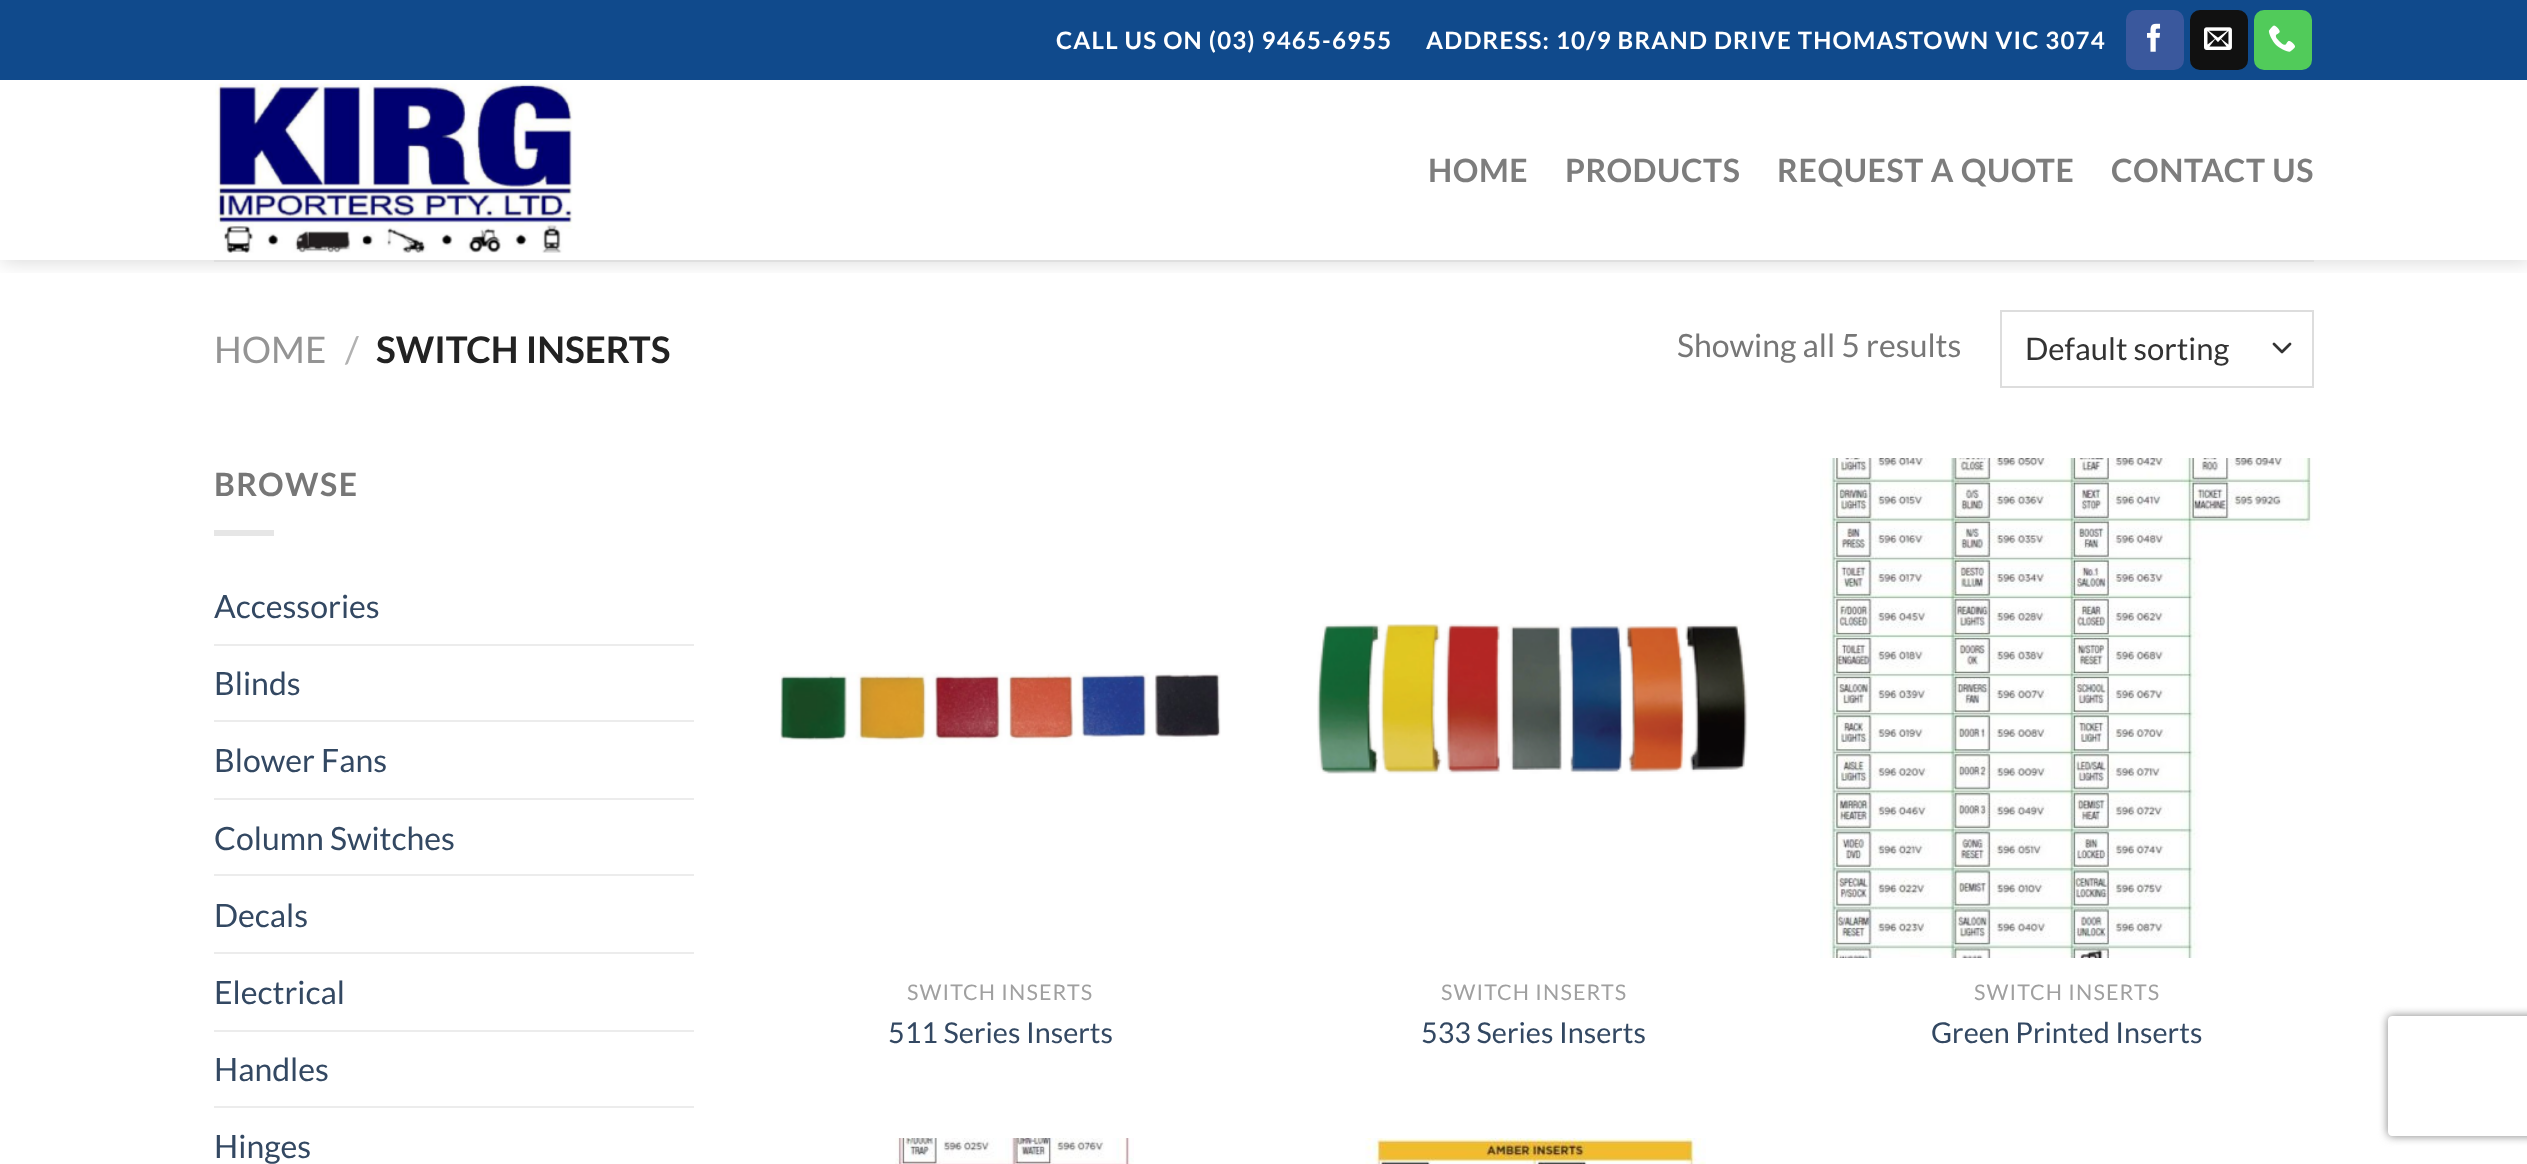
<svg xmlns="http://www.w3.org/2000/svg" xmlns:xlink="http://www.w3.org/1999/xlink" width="2527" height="1164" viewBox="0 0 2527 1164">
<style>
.cls-1{font:bold 24px Lato;letter-spacing:1.2px;fill:#ffffff}
.cls-2{font:bold 32px Lato;letter-spacing:0.6px;fill:#7d7d7d}
.cls-3{font:36.75px Lato;fill:#949494}
.cls-4{font:36.75px Lato;fill:#b2b2b2}
.cls-5{font:bold 36.75px Lato;fill:#222222}
.cls-6{font:32px Lato;fill:#777777}
.cls-7{font:31px Lato;fill:#333333}
.cls-8{font:bold 32px Lato;letter-spacing:1.5px;fill:#777777}
.cls-9{font:32px Lato;fill:#334862}
.cls-10{font:21.5px Lato;letter-spacing:1.1px;fill:#a0a0a0}
.cls-11{font:28.75px Lato;fill:#334862}
</style>
<defs>
<clipPath id="clip1"><rect x="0" y="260" width="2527" height="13"/></clipPath>
<clipPath id="clip2"><path d="M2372 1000H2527V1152H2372ZM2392 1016H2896C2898 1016 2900 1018 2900 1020V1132C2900 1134 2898 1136 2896 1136H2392C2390 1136 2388 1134 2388 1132V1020C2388 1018 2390 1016 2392 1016Z" clip-rule="evenodd"/></clipPath>
</defs>
<rect width="100%" height="100%" fill="#ffffff"/>
<g clip-path="url(#clip1)">
<rect fill="#000000" fill-opacity="0.15" filter="blur(10px)" x="2" y="2" width="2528" height="260"/>
</g>
<rect fill="#104a8c" x="0" y="0" width="2527" height="80"/>
<rect fill="#3a589d" stroke="#3a589d" stroke-width="2" x="2127" y="11" width="56" height="58" rx="9"/>
<image xlink:href="image0.png" x="2147" y="23" width="14" height="29"/>
<rect fill="#111111" stroke="#111111" stroke-width="2" x="2191" y="11" width="56" height="58" rx="9"/>
<image xlink:href="image1.png" x="2204" y="27" width="28" height="23"/>
<rect fill="#51cb5a" stroke="#51cb5a" stroke-width="2" x="2255" y="11" width="56" height="58" rx="9"/>
<image xlink:href="image2.png" x="2268" y="25" width="27" height="27"/>
<image xlink:href="image3.png" x="215" y="83" width="358" height="170"/>
<rect fill="#dfdfdf" x="214" y="260" width="2100" height="2"/>
<path fill="none" stroke="#333333" stroke-width="2.7" stroke-linecap="round" stroke-linejoin="round" d="M2274 344L2282 352L2290 344"/>
<rect fill="none" stroke="#dddddd" stroke-width="2" x="2001" y="311" width="312" height="76"/>
<rect fill="#e6e6e6" x="214" y="530" width="60" height="6"/>
<rect fill="#ececec" x="214" y="644" width="480" height="2"/>
<rect fill="#ececec" x="214" y="720" width="480" height="2"/>
<rect fill="#ececec" x="214" y="798" width="480" height="2"/>
<rect fill="#ececec" x="214" y="874" width="480" height="2"/>
<rect fill="#ececec" x="214" y="952" width="480" height="2"/>
<rect fill="#ececec" x="214" y="1030" width="480" height="2"/>
<rect fill="#ececec" x="214" y="1106" width="480" height="2"/>
<image xlink:href="image4.png" x="779" y="672" width="442" height="73"/>
<image xlink:href="image5.png" x="1317" y="623" width="431" height="151"/>
<image xlink:href="image6.png" x="1820" y="458" width="500" height="500"/>
<image xlink:href="image7.png" x="895" y="1138" width="239" height="26"/>
<image xlink:href="image8.png" x="1365" y="1138" width="341" height="26"/>
<g clip-path="url(#clip2)">
<rect fill="#808080" filter="blur(5px)" x="2388" y="1016" width="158" height="120" rx="4"/>
</g>
<text class="cls-1" x="1056" y="49">CALL US ON (03) 9465-6955</text>
<text class="cls-1" x="1426" y="49">ADDRESS: 10/9 BRAND DRIVE THOMASTOWN VIC 3074</text>
<text class="cls-2" x="1428" y="182">HOME</text>
<text class="cls-2" x="1565" y="182">PRODUCTS</text>
<text class="cls-2" x="1777" y="182">REQUEST A QUOTE</text>
<text class="cls-2" x="2111" y="182">CONTACT US</text>
<text class="cls-3" x="214" y="363">HOME</text>
<text class="cls-4" x="345" y="363">/</text>
<text class="cls-5" x="376" y="363">SWITCH INSERTS</text>
<text class="cls-6" x="1677" y="357">Showing all 5 results</text>
<text class="cls-7" x="2025" y="360">Default sorting</text>
<text class="cls-8" x="214" y="496">BROWSE</text>
<text class="cls-9" x="214" y="618">Accessories</text>
<text class="cls-9" x="214" y="695">Blinds</text>
<text class="cls-9" x="214" y="772">Blower Fans</text>
<text class="cls-9" x="214" y="850">Column Switches</text>
<text class="cls-9" x="214" y="927">Decals</text>
<text class="cls-9" x="214" y="1004">Electrical</text>
<text class="cls-9" x="214" y="1081">Handles</text>
<text class="cls-9" x="214" y="1158">Hinges</text>
<text class="cls-10" x="907" y="1000">SWITCH INSERTS</text>
<text class="cls-11" x="888" y="1043">511 Series Inserts</text>
<text class="cls-10" x="1441" y="1000">SWITCH INSERTS</text>
<text class="cls-11" x="1421" y="1043">533 Series Inserts</text>
<text class="cls-10" x="1974" y="1000">SWITCH INSERTS</text>
<text class="cls-11" x="1931" y="1043">Green Printed Inserts</text>
</svg>
